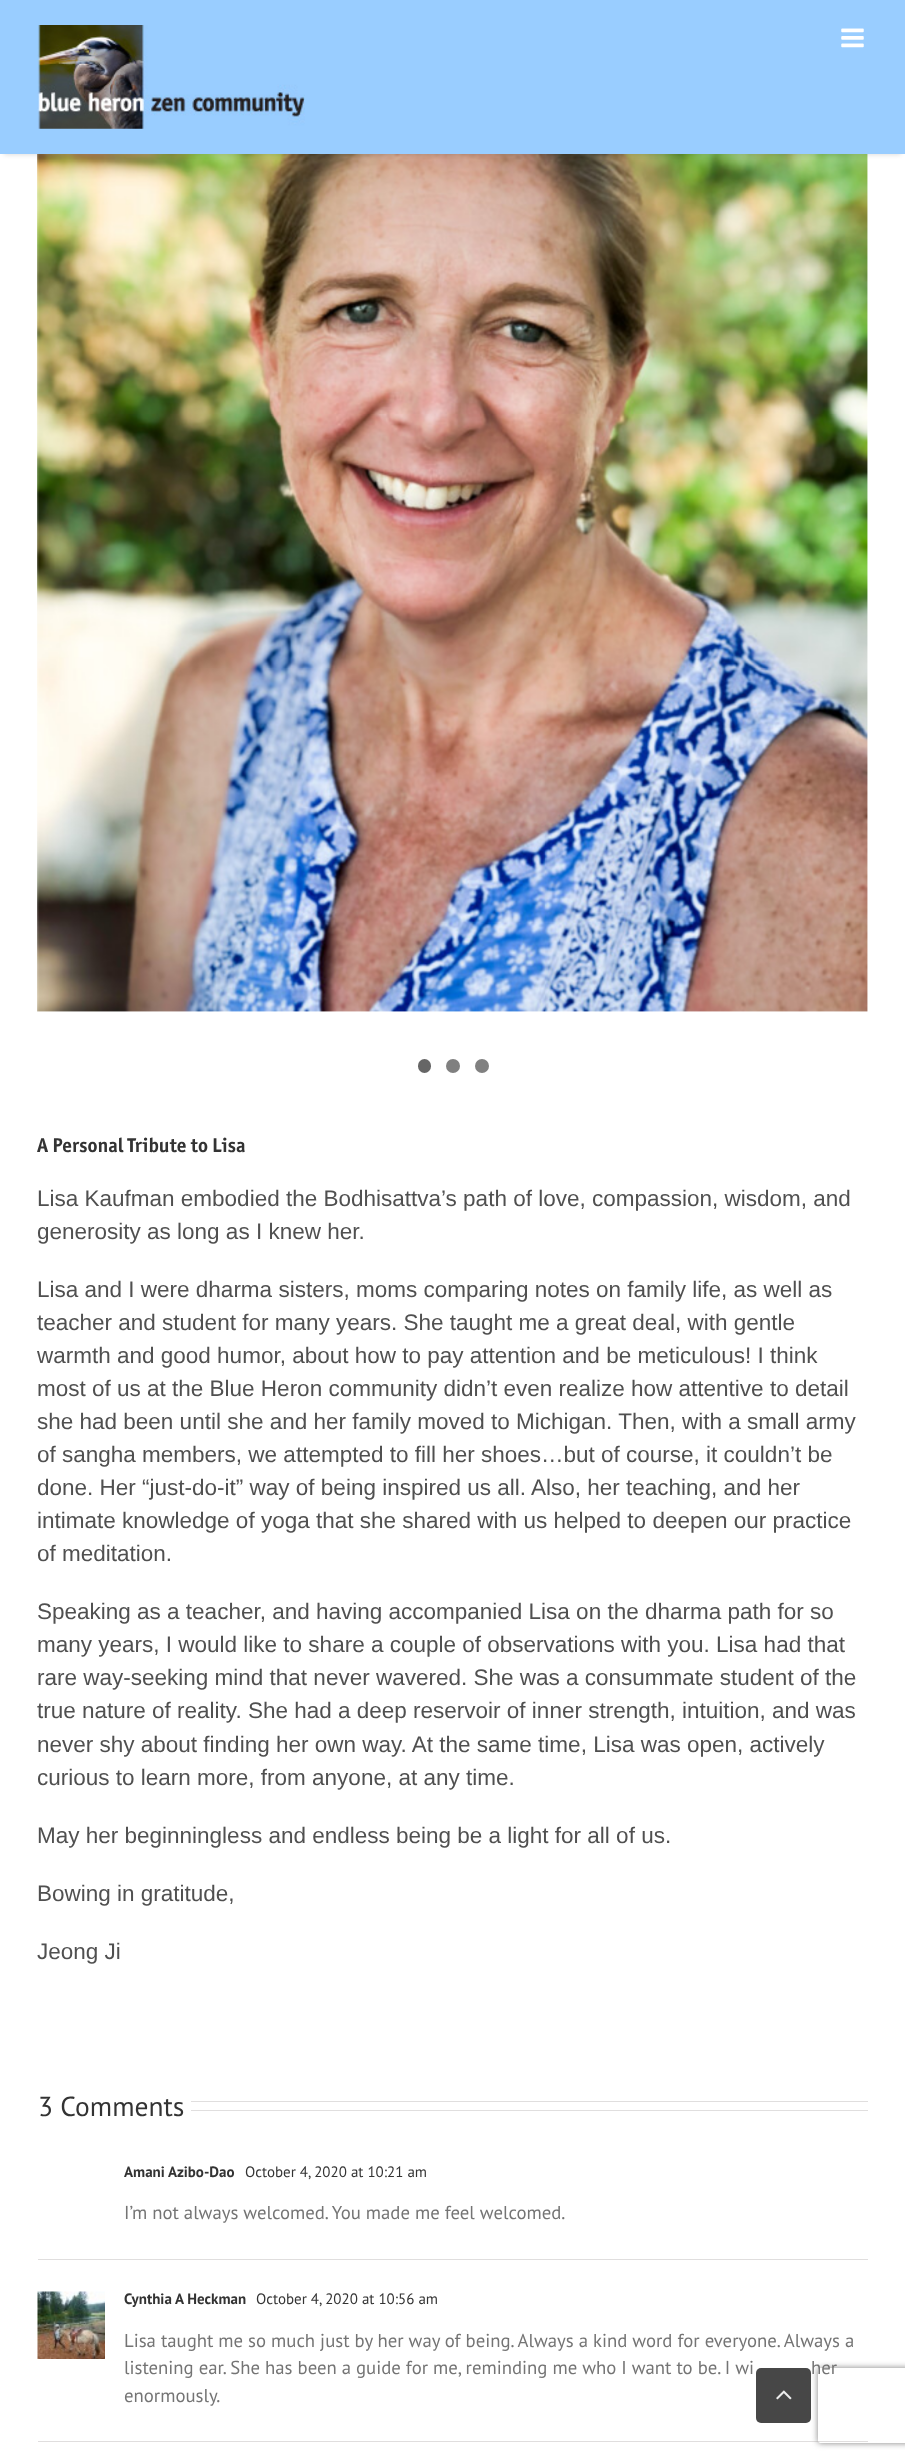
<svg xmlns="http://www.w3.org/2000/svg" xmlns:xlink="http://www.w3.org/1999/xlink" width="905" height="2460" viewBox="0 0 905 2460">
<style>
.cls-1{font:bold 20px 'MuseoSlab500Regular';fill:#333333}
.cls-2{font:22.5px Liberation Sans;fill:#505050}
.cls-3{font:27.5px PT Sans;fill:#333333}
.cls-4{font:bold 15px PT Sans;fill:#333333}
.cls-5{font:15px PT Sans;fill:#333333}
.cls-6{font:18.75px PT Sans;fill:#747474}
</style>
<defs>
<clipPath id="clip1"><path d="M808 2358H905V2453H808ZM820.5 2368H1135.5C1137 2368 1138 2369 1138 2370.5V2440.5C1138 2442 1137 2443 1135.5 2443H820.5C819 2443 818 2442 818 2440.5V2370.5C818 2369 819 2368 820.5 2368Z" clip-rule="evenodd"/></clipPath>
</defs>
<rect width="100%" height="100%" fill="#ffffff"/>
<image xlink:href="image2.png" x="37" y="154" width="831" height="858"/>
<rect fill="#000000" fill-opacity="0.12" filter="blur(2px)" x="4" y="9" width="897" height="146"/>
<rect fill="#99cdff" x="0" y="0" width="905" height="154"/>
<image xlink:href="image0.png" x="37" y="25" width="268" height="104"/>
<image xlink:href="image1.png" x="841" y="28" width="23" height="20"/>
<rect fill="#666666" x="418" y="1059" width="13" height="14" rx="6.5"/>
<circle fill="#808080" cx="453" cy="1066" r="7"/>
<circle fill="#808080" cx="482" cy="1066" r="7"/>
<rect fill="#e0dede" x="191" y="2101" width="677" height="1"/>
<rect fill="#e0dede" x="191" y="2110" width="677" height="1"/>
<rect fill="#e0dede" x="38" y="2259" width="830" height="1"/>
<rect fill="#e0dede" x="38" y="2441" width="830" height="1"/>
<image xlink:href="image3.png" x="37" y="2291" width="68" height="68"/>
<g clip-path="url(#clip1)">
<rect fill="#808080" filter="blur(3px)" x="818" y="2368" width="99" height="75" rx="2.5"/>
</g>
<rect fill="#333333" fill-opacity="0.9" x="756" y="2368" width="55" height="55" rx="5"/>
<image xlink:href="image4.png" x="776" y="2390" width="16" height="10"/>
<text class="cls-1" x="37" y="1152">A Personal Tribute to Lisa</text>
<text class="cls-2"><tspan x="37" y="1206">Lisa Kaufman embodied the Bodhisattva’s path of love, compassion, wisdom, and</tspan><tspan x="37" y="1239">generosity as long as I knew her.</tspan></text>
<text class="cls-2"><tspan x="37" y="1297">Lisa and I were dharma sisters, moms comparing notes on family life, as well as</tspan><tspan x="37" y="1330">teacher and student for many years. She taught me a great deal, with gentle</tspan><tspan x="37" y="1363">warmth and good humor, about how to pay attention and be meticulous! I think</tspan><tspan x="37" y="1396">most of us at the Blue Heron community didn’t even realize how attentive to detail</tspan><tspan x="37" y="1429">she had been until she and her family moved to Michigan. Then, with a small army</tspan><tspan x="37" y="1462">of sangha members, we attempted to fill her shoes…but of course, it couldn’t be</tspan><tspan x="37" y="1495">done. Her “just-do-it” way of being inspired us all. Also, her teaching, and her</tspan><tspan x="37" y="1528">intimate knowledge of yoga that she shared with us helped to deepen our practice</tspan><tspan x="37" y="1561">of meditation.</tspan></text>
<text class="cls-2"><tspan x="37" y="1619">Speaking as a teacher, and having accompanied Lisa on the dharma path for so</tspan><tspan x="37" y="1652">many years, I would like to share a couple of observations with you. Lisa had that</tspan><tspan x="37" y="1685">rare way-seeking mind that never wavered. She was a consummate student of the</tspan><tspan x="37" y="1718">true nature of reality. She had a deep reservoir of inner strength, intuition, and was</tspan><tspan x="37" y="1752">never shy about finding her own way. At the same time, Lisa was open, actively</tspan><tspan x="37" y="1785">curious to learn more, from anyone, at any time.</tspan></text>
<text class="cls-2" x="37" y="1843">May her beginningless and endless being be a light for all of us.</text>
<text class="cls-2" x="37" y="1901">Bowing in gratitude,</text>
<text class="cls-2" x="37" y="1959">Jeong Ji</text>
<text class="cls-3" x="38" y="2116">3 Comments</text>
<text class="cls-4" x="124" y="2177">Amani Azibo-Dao</text>
<text class="cls-5" x="245" y="2177">October 4, 2020 at 10:21 am</text>
<text class="cls-6" x="124" y="2219">I’m not always welcomed. You made me feel welcomed.</text>
<text class="cls-4" x="124" y="2304">Cynthia A Heckman</text>
<text class="cls-5" x="256" y="2304">October 4, 2020 at 10:56 am</text>
<text class="cls-6"><tspan x="124" y="2347">Lisa taught me so much just by her way of being. Always a kind word for everyone. Always a</tspan><tspan x="124" y="2374">listening ear. She has been a guide for me, reminding me who I want to be. I wi</tspan></text>
<text class="cls-6" x="811" y="2374">her</text>
<text class="cls-6" x="124" y="2402">enormously.</text>
</svg>
